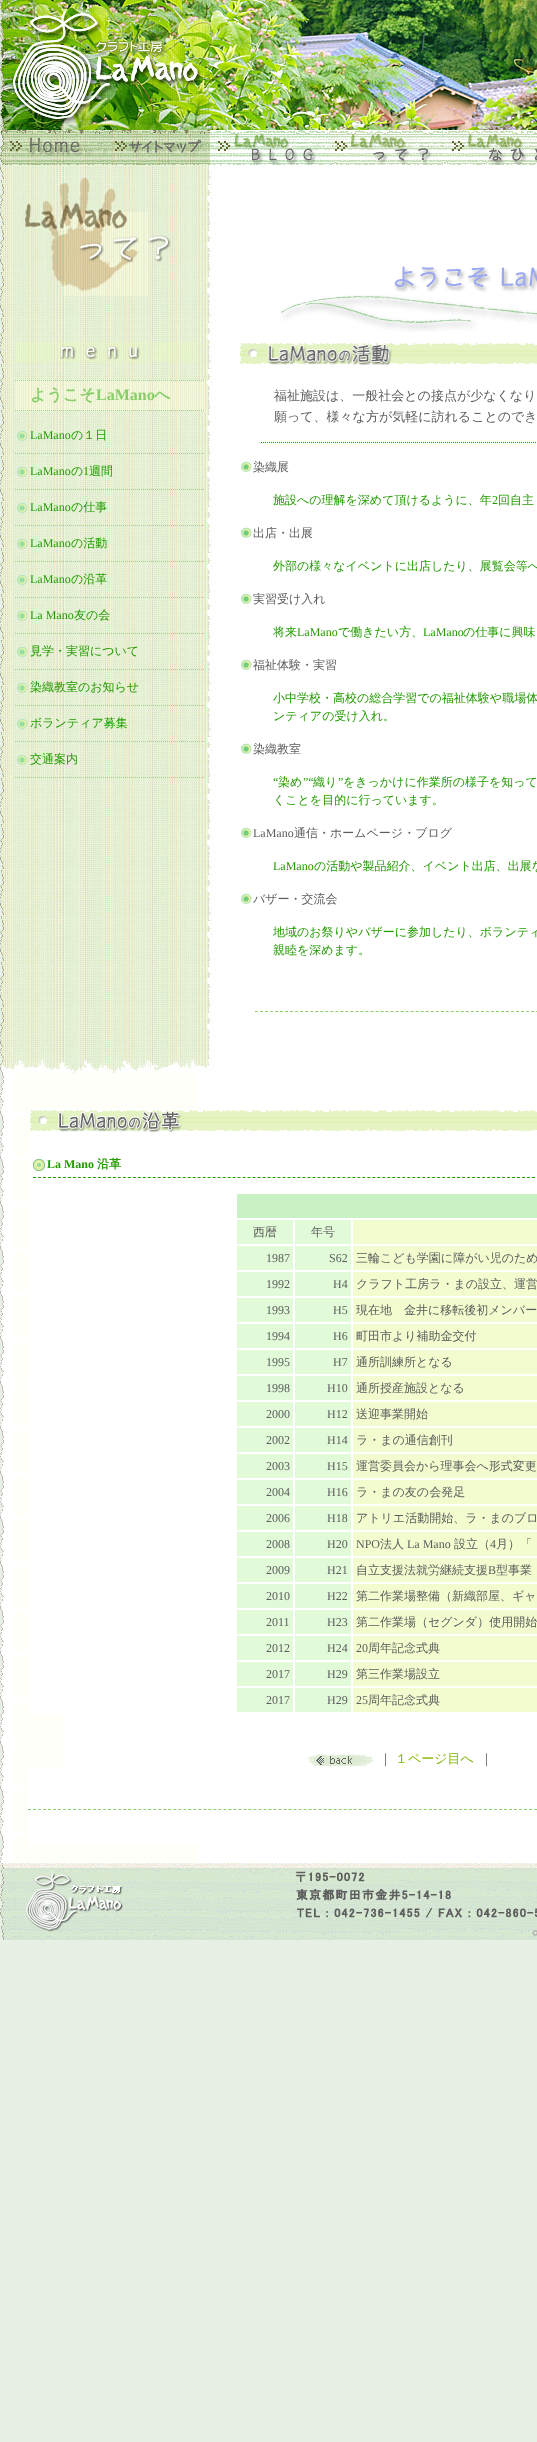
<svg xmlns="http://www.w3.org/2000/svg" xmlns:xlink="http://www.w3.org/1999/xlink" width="537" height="2442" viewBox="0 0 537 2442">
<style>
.cls-1{font:bold 16px WenQuanYi Zen Hei;fill:#88cf6b}
.cls-2{font:bold 16px Liberation Serif;fill:#88cf6b}
.cls-3{font:12px Liberation Serif;fill:#229b00}
.cls-4{font:500 12px WenQuanYi Zen Hei;fill:#229b00}
.cls-5{font:500 13px WenQuanYi Zen Hei;fill:#5d5d5d}
.cls-6{font:500 12px WenQuanYi Zen Hei;fill:#5d5d5d}
.cls-7{font:12px Liberation Serif;fill:#5d5d5d}
.cls-8{font:bold 12px Liberation Serif;fill:#229b00}
.cls-9{font:bold 12px WenQuanYi Zen Hei;fill:#229b00}
.cls-10{font:500 13px WenQuanYi Zen Hei;fill:#84b800}
</style>
<rect width="100%" height="100%" fill="#e8f0e5"/>
<image xlink:href="image0.png" x="0" y="0" width="210" height="130"/>
<image xlink:href="image1.png" x="210" y="0" width="327" height="130"/>
<image xlink:href="image2.png" x="0" y="130" width="105" height="35"/>
<image xlink:href="image3.png" x="105" y="130" width="105" height="35"/>
<image xlink:href="image4.png" x="210" y="130" width="120" height="35"/>
<image xlink:href="image5.png" x="330" y="130" width="117" height="35"/>
<image xlink:href="image6.png" x="447" y="130" width="90" height="35"/>
<rect fill="#ffffff" x="216" y="165" width="321" height="908"/>
<image xlink:href="image7.png" x="0" y="165" width="216" height="882"/>
<image xlink:href="image8.png" x="15" y="166" width="184" height="134"/>
<image xlink:href="image9.png" x="280" y="266" width="257" height="66"/>
<image xlink:href="image10.png" x="15" y="342" width="184" height="20"/>
<image xlink:href="image11.png" x="15" y="380" width="190" height="31"/>
<path fill="none" stroke="#a4cf92" stroke-dasharray="1 1" d="M15 380.5H205"/>
<path fill="none" stroke="#a4cf92" stroke-dasharray="1 1" d="M15 410.5H205"/>
<path fill="none" stroke="#a4cf92" stroke-dasharray="1 1" d="M15 453.5H205"/>
<image xlink:href="image12.png" x="16" y="430" width="12" height="12"/>
<path fill="none" stroke="#a4cf92" stroke-dasharray="1 1" d="M15 489.5H205"/>
<image xlink:href="image13.png" x="16" y="466" width="12" height="12"/>
<path fill="none" stroke="#a4cf92" stroke-dasharray="1 1" d="M15 525.5H205"/>
<image xlink:href="image14.png" x="16" y="502" width="12" height="12"/>
<path fill="none" stroke="#a4cf92" stroke-dasharray="1 1" d="M15 561.5H205"/>
<image xlink:href="image15.png" x="16" y="538" width="12" height="12"/>
<path fill="none" stroke="#a4cf92" stroke-dasharray="1 1" d="M15 597.5H205"/>
<image xlink:href="image16.png" x="16" y="574" width="12" height="12"/>
<path fill="none" stroke="#a4cf92" stroke-dasharray="1 1" d="M15 633.5H205"/>
<image xlink:href="image17.png" x="16" y="610" width="12" height="12"/>
<path fill="none" stroke="#a4cf92" stroke-dasharray="1 1" d="M15 669.5H205"/>
<image xlink:href="image18.png" x="16" y="646" width="12" height="12"/>
<path fill="none" stroke="#a4cf92" stroke-dasharray="1 1" d="M15 705.5H205"/>
<image xlink:href="image19.png" x="16" y="682" width="12" height="12"/>
<path fill="none" stroke="#a4cf92" stroke-dasharray="1 1" d="M15 741.5H205"/>
<image xlink:href="image20.png" x="16" y="718" width="12" height="12"/>
<path fill="none" stroke="#a4cf92" stroke-dasharray="1 1" d="M15 777.5H205"/>
<image xlink:href="image21.png" x="16" y="754" width="12" height="12"/>
<image xlink:href="image22.png" x="394" y="343" width="143" height="21"/>
<image xlink:href="image23.png" x="240" y="343" width="154" height="22"/>
<path fill="none" stroke="#229b00" stroke-dasharray="1 1" d="M261 442.5H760"/>
<image xlink:href="image24.png" x="241" y="461" width="11" height="11"/>
<image xlink:href="image24.png" x="241" y="527" width="11" height="11"/>
<image xlink:href="image24.png" x="241" y="593" width="11" height="11"/>
<image xlink:href="image24.png" x="241" y="659" width="11" height="11"/>
<image xlink:href="image24.png" x="241" y="743" width="11" height="11"/>
<image xlink:href="image24.png" x="241" y="827" width="11" height="11"/>
<image xlink:href="image24.png" x="241" y="893" width="11" height="11"/>
<path fill="none" stroke="#88cf6b" stroke-dasharray="3 2.02" d="M255 1011.5H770"/>
<image xlink:href="image25.png" x="0" y="1047" width="216" height="26"/>
<rect fill="#ffffff" x="198" y="1073" width="339" height="790"/>
<image xlink:href="image26.png" x="0" y="1073" width="198" height="790"/>
<rect fill="#ffffff" x="30" y="1109" width="168" height="83"/>
<image xlink:href="image27.png" x="184" y="1110" width="353" height="21"/>
<image xlink:href="image28.png" x="30" y="1110" width="154" height="22"/>
<image xlink:href="image29.png" x="33" y="1159" width="12" height="12"/>
<path fill="none" stroke="#229b00" stroke-dasharray="3 1.99" d="M33 1177.5H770"/>
<rect fill="#ffffff" x="30" y="1192" width="168" height="522"/>
<rect fill="#c8f1c4" x="237" y="1194" width="300" height="24"/>
<rect fill="#e1fbd9" x="237" y="1220" width="56" height="24"/>
<rect fill="#e1fbd9" x="295" y="1220" width="56" height="24"/>
<rect fill="#f1fdcf" x="353" y="1220" width="184" height="24"/>
<rect fill="#e1fbd9" x="237" y="1246" width="56" height="24"/>
<rect fill="#e1fbd9" x="295" y="1246" width="56" height="24"/>
<rect fill="#f1fdcf" x="353" y="1246" width="184" height="24"/>
<rect fill="#e1fbd9" x="237" y="1272" width="56" height="24"/>
<rect fill="#e1fbd9" x="295" y="1272" width="56" height="24"/>
<rect fill="#f1fdcf" x="353" y="1272" width="184" height="24"/>
<rect fill="#e1fbd9" x="237" y="1298" width="56" height="24"/>
<rect fill="#e1fbd9" x="295" y="1298" width="56" height="24"/>
<rect fill="#f1fdcf" x="353" y="1298" width="184" height="24"/>
<rect fill="#e1fbd9" x="237" y="1324" width="56" height="24"/>
<rect fill="#e1fbd9" x="295" y="1324" width="56" height="24"/>
<rect fill="#f1fdcf" x="353" y="1324" width="184" height="24"/>
<rect fill="#e1fbd9" x="237" y="1350" width="56" height="24"/>
<rect fill="#e1fbd9" x="295" y="1350" width="56" height="24"/>
<rect fill="#f1fdcf" x="353" y="1350" width="184" height="24"/>
<rect fill="#e1fbd9" x="237" y="1376" width="56" height="24"/>
<rect fill="#e1fbd9" x="295" y="1376" width="56" height="24"/>
<rect fill="#f1fdcf" x="353" y="1376" width="184" height="24"/>
<rect fill="#e1fbd9" x="237" y="1402" width="56" height="24"/>
<rect fill="#e1fbd9" x="295" y="1402" width="56" height="24"/>
<rect fill="#f1fdcf" x="353" y="1402" width="184" height="24"/>
<rect fill="#e1fbd9" x="237" y="1428" width="56" height="24"/>
<rect fill="#e1fbd9" x="295" y="1428" width="56" height="24"/>
<rect fill="#f1fdcf" x="353" y="1428" width="184" height="24"/>
<rect fill="#e1fbd9" x="237" y="1454" width="56" height="24"/>
<rect fill="#e1fbd9" x="295" y="1454" width="56" height="24"/>
<rect fill="#f1fdcf" x="353" y="1454" width="184" height="24"/>
<rect fill="#e1fbd9" x="237" y="1480" width="56" height="24"/>
<rect fill="#e1fbd9" x="295" y="1480" width="56" height="24"/>
<rect fill="#f1fdcf" x="353" y="1480" width="184" height="24"/>
<rect fill="#e1fbd9" x="237" y="1506" width="56" height="24"/>
<rect fill="#e1fbd9" x="295" y="1506" width="56" height="24"/>
<rect fill="#f1fdcf" x="353" y="1506" width="184" height="24"/>
<rect fill="#e1fbd9" x="237" y="1532" width="56" height="24"/>
<rect fill="#e1fbd9" x="295" y="1532" width="56" height="24"/>
<rect fill="#f1fdcf" x="353" y="1532" width="184" height="24"/>
<rect fill="#e1fbd9" x="237" y="1558" width="56" height="24"/>
<rect fill="#e1fbd9" x="295" y="1558" width="56" height="24"/>
<rect fill="#f1fdcf" x="353" y="1558" width="184" height="24"/>
<rect fill="#e1fbd9" x="237" y="1584" width="56" height="24"/>
<rect fill="#e1fbd9" x="295" y="1584" width="56" height="24"/>
<rect fill="#f1fdcf" x="353" y="1584" width="184" height="24"/>
<rect fill="#e1fbd9" x="237" y="1610" width="56" height="24"/>
<rect fill="#e1fbd9" x="295" y="1610" width="56" height="24"/>
<rect fill="#f1fdcf" x="353" y="1610" width="184" height="24"/>
<rect fill="#e1fbd9" x="237" y="1636" width="56" height="24"/>
<rect fill="#e1fbd9" x="295" y="1636" width="56" height="24"/>
<rect fill="#f1fdcf" x="353" y="1636" width="184" height="24"/>
<rect fill="#e1fbd9" x="237" y="1662" width="56" height="24"/>
<rect fill="#e1fbd9" x="295" y="1662" width="56" height="24"/>
<rect fill="#f1fdcf" x="353" y="1662" width="184" height="24"/>
<rect fill="#e1fbd9" x="237" y="1688" width="56" height="24"/>
<rect fill="#e1fbd9" x="295" y="1688" width="56" height="24"/>
<rect fill="#f1fdcf" x="353" y="1688" width="184" height="24"/>
<rect fill="#ffffff" x="65" y="1714" width="133" height="55"/>
<image xlink:href="image30.png" x="307" y="1754" width="67" height="13"/>
<rect fill="#ffffff" x="28" y="1769" width="170" height="76"/>
<path fill="none" stroke="#88cf6b" stroke-dasharray="3 2.01" d="M28 1809.5H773"/>
<image xlink:href="image31.png" x="0" y="1863" width="537" height="77"/>
<text class="cls-1" x="30" y="400">ようこそ</text>
<text class="cls-2" x="96" y="400">LaMano</text>
<text class="cls-1" x="154" y="400">へ</text>
<text class="cls-3" x="30" y="439">LaMano</text>
<text class="cls-4" x="71" y="439">の１日</text>
<text class="cls-3" x="30" y="475">LaMano</text>
<text class="cls-4" x="71" y="475">の</text>
<text class="cls-3" x="83" y="475">1</text>
<text class="cls-4" x="89" y="475">週間</text>
<text class="cls-3" x="30" y="511">LaMano</text>
<text class="cls-4" x="71" y="511">の仕事</text>
<text class="cls-3" x="30" y="547">LaMano</text>
<text class="cls-4" x="71" y="547">の活動</text>
<text class="cls-3" x="30" y="583">LaMano</text>
<text class="cls-4" x="71" y="583">の沿革</text>
<text class="cls-3" x="30" y="619">La Mano</text>
<text class="cls-4" x="74" y="619">友の会</text>
<text class="cls-4" x="30" y="655">見学・実習について</text>
<text class="cls-4" x="30" y="691">染織教室のお知らせ</text>
<text class="cls-4" x="30" y="727">ボランティア募集</text>
<text class="cls-4" x="30" y="763">交通案内</text>
<text class="cls-5"><tspan x="274" y="400">福祉施設は、一般社会との接点が少なくなり</tspan><tspan x="274" y="421">願って、様々な方が気軽に訪れることのでき</tspan></text>
<text class="cls-6" x="253" y="471">染織展</text>
<text class="cls-4" x="273" y="504">施設への理解を深めて頂けるように、年</text>
<text class="cls-3" x="492" y="504">2</text>
<text class="cls-4" x="498" y="504">回自主</text>
<text class="cls-6" x="253" y="537">出店・出展</text>
<text class="cls-4" x="273" y="570">外部の様々なイベントに出店したり、展覧会等へ</text>
<text class="cls-6" x="253" y="603">実習受け入れ</text>
<text class="cls-4" x="273" y="636">将来</text>
<text class="cls-3" x="297" y="636">LaMano</text>
<text class="cls-4" x="338" y="636">で働きたい方、</text>
<text class="cls-3" x="423" y="636">LaMano</text>
<text class="cls-4" x="463" y="636">の仕事に興味</text>
<text class="cls-6" x="253" y="669">福祉体験・実習</text>
<text class="cls-4"><tspan x="273" y="702">小中学校・高校の総合学習での福祉体験や職場体</tspan><tspan x="273" y="720">ンティアの受け入れ。</tspan></text>
<text class="cls-6" x="253" y="753">染織教室</text>
<text class="cls-3" x="273" y="786">“</text>
<text class="cls-4" x="278" y="786">染め</text>
<text class="cls-3" x="303" y="786">”“</text>
<text class="cls-4" x="313" y="786">織り</text>
<text class="cls-3" x="338" y="786">”</text>
<text class="cls-4" x="343" y="786">をきっかけに作業所の様子を知って</text>
<text class="cls-4" x="273" y="804">くことを目的に行っています。</text>
<text class="cls-7" x="253" y="837">LaMano</text>
<text class="cls-6" x="294" y="837">通信・ホームページ・ブログ</text>
<text class="cls-3" x="273" y="870">LaMano</text>
<text class="cls-4" x="314" y="870">の活動や製品紹介、イベント出店、出展な</text>
<text class="cls-6" x="253" y="903">バザー・交流会</text>
<text class="cls-4"><tspan x="273" y="936">地域のお祭りやバザーに参加したり、ボランティ</tspan><tspan x="273" y="954">親睦を深めます。</tspan></text>
<text class="cls-8" x="47" y="1168">La Mano</text>
<text class="cls-9" x="97" y="1168">沿革</text>
<text class="cls-6" x="253" y="1236">西暦</text>
<text class="cls-6" x="311" y="1236">年号</text>
<text class="cls-7" x="266" y="1262">1987</text>
<text class="cls-7" x="329" y="1262">S62</text>
<text class="cls-6" x="356" y="1262">三輪こども学園に障がい児のため</text>
<text class="cls-7" x="266" y="1288">1992</text>
<text class="cls-7" x="333" y="1288">H4</text>
<text class="cls-6" x="356" y="1288">クラフト工房ラ・まの設立、運営</text>
<text class="cls-7" x="266" y="1314">1993</text>
<text class="cls-7" x="333" y="1314">H5</text>
<text class="cls-6" x="356" y="1314">現在地　金井に移転後初メンバー</text>
<text class="cls-7" x="266" y="1340">1994</text>
<text class="cls-7" x="333" y="1340">H6</text>
<text class="cls-6" x="356" y="1340">町田市より補助金交付</text>
<text class="cls-7" x="266" y="1366">1995</text>
<text class="cls-7" x="333" y="1366">H7</text>
<text class="cls-6" x="356" y="1366">通所訓練所となる</text>
<text class="cls-7" x="266" y="1392">1998</text>
<text class="cls-7" x="327" y="1392">H10</text>
<text class="cls-6" x="356" y="1392">通所授産施設となる</text>
<text class="cls-7" x="266" y="1418">2000</text>
<text class="cls-7" x="327" y="1418">H12</text>
<text class="cls-6" x="356" y="1418">送迎事業開始</text>
<text class="cls-7" x="266" y="1444">2002</text>
<text class="cls-7" x="327" y="1444">H14</text>
<text class="cls-6" x="356" y="1444">ラ・まの通信創刊</text>
<text class="cls-7" x="266" y="1470">2003</text>
<text class="cls-7" x="327" y="1470">H15</text>
<text class="cls-6" x="356" y="1470">運営委員会から理事会へ形式変更</text>
<text class="cls-7" x="266" y="1496">2004</text>
<text class="cls-7" x="327" y="1496">H16</text>
<text class="cls-6" x="356" y="1496">ラ・まの友の会発足</text>
<text class="cls-7" x="266" y="1522">2006</text>
<text class="cls-7" x="327" y="1522">H18</text>
<text class="cls-6" x="356" y="1522">アトリエ活動開始、ラ・まのブロ</text>
<text class="cls-7" x="266" y="1548">2008</text>
<text class="cls-7" x="327" y="1548">H20</text>
<text class="cls-7" x="356" y="1548">NPO</text>
<text class="cls-6" x="380" y="1548">法人</text>
<text class="cls-7" x="407" y="1548">La Mano</text>
<text class="cls-6" x="454" y="1548">設立（</text>
<text class="cls-7" x="490" y="1548">4</text>
<text class="cls-6" x="496" y="1548">月）「</text>
<text class="cls-7" x="266" y="1574">2009</text>
<text class="cls-7" x="327" y="1574">H21</text>
<text class="cls-6" x="356" y="1574">自立支援法就労継続支援</text>
<text class="cls-7" x="488" y="1574">B</text>
<text class="cls-6" x="496" y="1574">型事業</text>
<text class="cls-7" x="266" y="1600">2010</text>
<text class="cls-7" x="327" y="1600">H22</text>
<text class="cls-6" x="356" y="1600">第二作業場整備（新織部屋、ギャ</text>
<text class="cls-7" x="266" y="1626">2011</text>
<text class="cls-7" x="327" y="1626">H23</text>
<text class="cls-6" x="356" y="1626">第二作業場（セグンダ）使用開始</text>
<text class="cls-7" x="266" y="1652">2012</text>
<text class="cls-7" x="327" y="1652">H24</text>
<text class="cls-7" x="356" y="1652">20</text>
<text class="cls-6" x="368" y="1652">周年記念式典</text>
<text class="cls-7" x="266" y="1678">2017</text>
<text class="cls-7" x="327" y="1678">H29</text>
<text class="cls-6" x="356" y="1678">第三作業場設立</text>
<text class="cls-7" x="266" y="1704">2017</text>
<text class="cls-7" x="327" y="1704">H29</text>
<text class="cls-7" x="356" y="1704">25</text>
<text class="cls-6" x="368" y="1704">周年記念式典</text>
<text class="cls-5" x="379" y="1763">｜</text>
<text class="cls-10" x="395" y="1763">１ページ目へ</text>
<text class="cls-5" x="480" y="1763">｜</text>
</svg>
